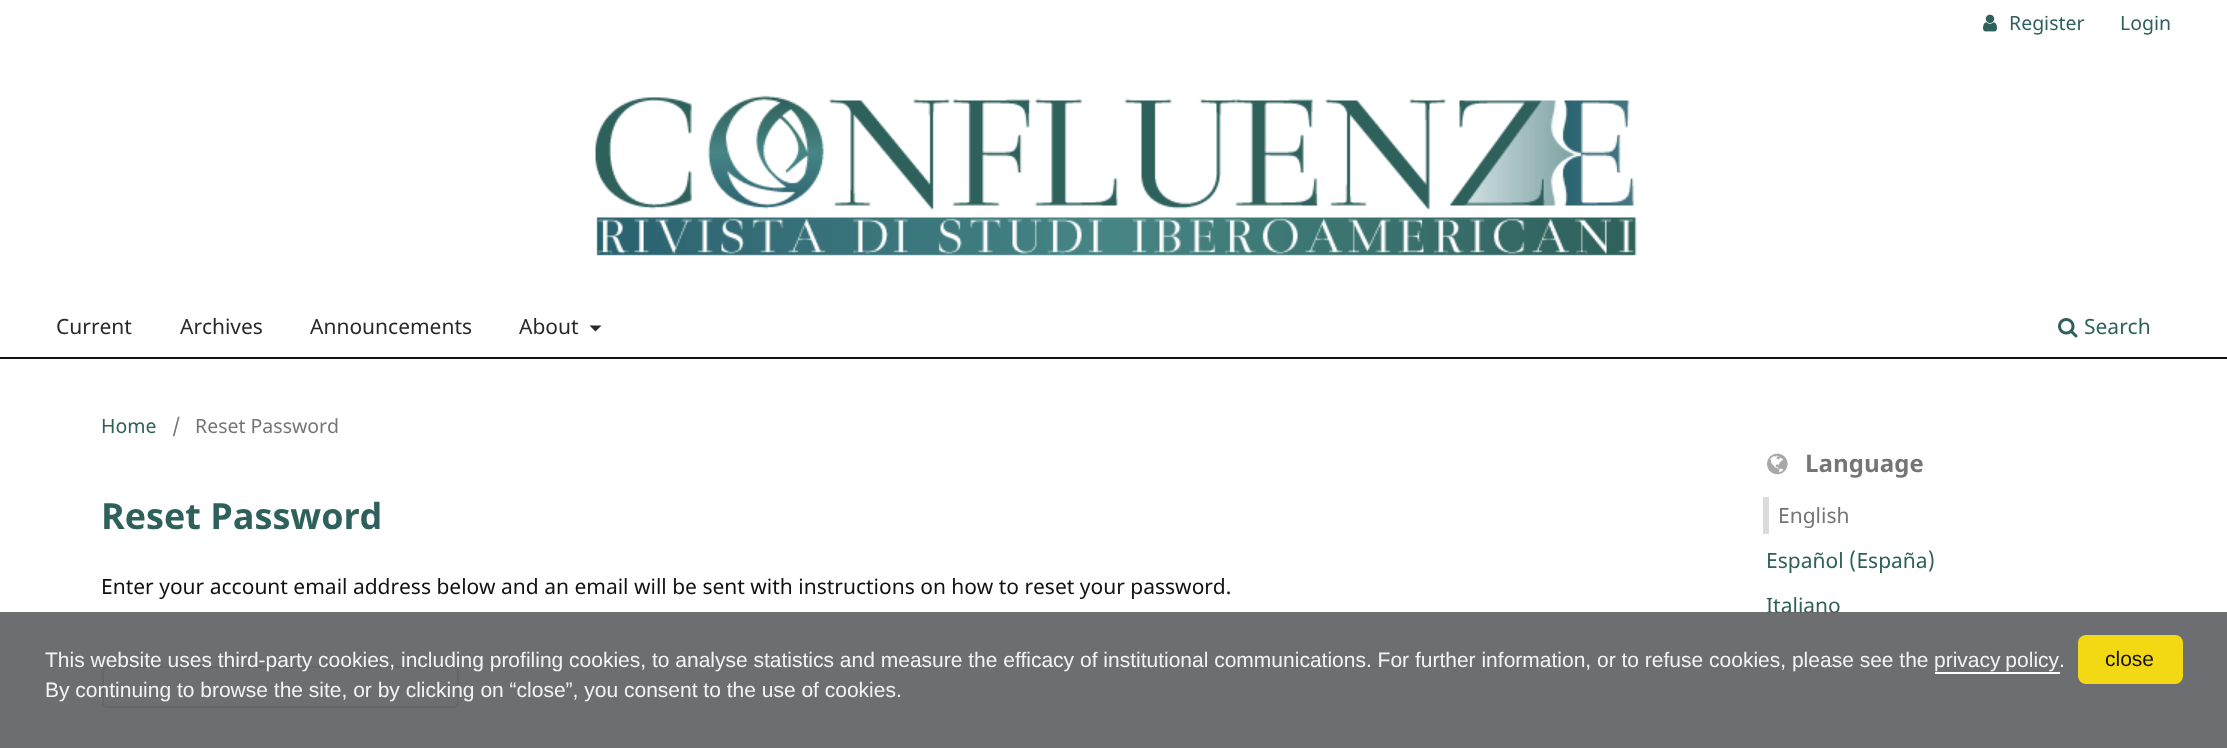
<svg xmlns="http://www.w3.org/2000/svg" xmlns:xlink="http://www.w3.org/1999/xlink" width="2227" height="748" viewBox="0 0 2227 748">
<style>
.cls-1{font:19.5px Noto Sans;fill:#2e605c}
.cls-2{font:21px Noto Sans;fill:#292929}
.cls-3{font:21px Noto Sans;fill:#2e605c}
.cls-4{font:19.5px Noto Sans;fill:#757575}
.cls-5{font:bold 36px Noto Sans;fill:#2e605c}
.cls-6{font:21px Noto Sans;fill:#111111}
.cls-7{font:bold 24px Noto Sans;fill:#757575}
.cls-8{font:21px Noto Sans;fill:#757575}
.cls-9{font:21px Liberation Sans;fill:#f3f3f4}
.cls-10{font:21px Liberation Sans;fill:#ffffff}
.cls-11{font:21px Liberation Sans;fill:#111111}
</style>
<rect width="100%" height="100%" fill="#ffffff"/>
<rect fill="#111111" x="0" y="357" width="2227" height="2"/>
<image xlink:href="image0.png" x="1983" y="14" width="14" height="18"/>
<path fill="#292929" d="M589.5 325.5H601.5L595.5 331.5Z"/>
<image xlink:href="image1.png" x="2058" y="318" width="20" height="20"/>
<image xlink:href="image2.png" x="595" y="95" width="1042" height="161"/>
<rect fill="none" stroke="#999999" stroke-width="2" x="103" y="667" width="355" height="40" rx="4"/>
<image xlink:href="image3.png" x="1767" y="453" width="21" height="22"/>
<rect fill="#dbdbdb" x="1763" y="497" width="6" height="37"/>
<text class="cls-1" x="2009" y="30">Register</text>
<text class="cls-1" x="2120" y="30">Login</text>
<text class="cls-2" x="56" y="334">Current</text>
<text class="cls-2" x="180" y="334">Archives</text>
<text class="cls-2" x="310" y="334">Announcements</text>
<text class="cls-2" x="519" y="334">About</text>
<text class="cls-3" x="2084" y="334">Search</text>
<text class="cls-1" x="101" y="433">Home</text>
<text class="cls-4" x="172" y="433">/</text>
<text class="cls-4" x="195" y="433">Reset Password</text>
<text class="cls-5" x="101" y="529">Reset Password</text>
<text class="cls-6" x="101" y="594">Enter your account email address below and an email will be sent with instructions on how to reset your password.</text>
<text class="cls-7" x="1805" y="472">Language</text>
<text class="cls-8" x="1778" y="523">English</text>
<text class="cls-3" x="1766" y="568">Español (España)</text>
<text class="cls-3" x="1766" y="613">Italiano</text>
<rect fill="#616265" fill-opacity="0.92" x="0" y="612" width="2227" height="136"/>
<text class="cls-9" x="45" y="667">This website uses third-party cookies, including profiling cookies, to analyse statistics and measure the efficacy of institutional communications. For further information, or to refuse cookies, please see the</text>
<text class="cls-9" x="1934" y="667" word-spacing="-1">privacy policy</text>
<rect fill="#ffffff" x="1935" y="672" width="125" height="2"/>
<text class="cls-10" x="2059" y="667">.</text>
<text class="cls-9" x="45" y="697">By continuing to browse the site, or by clicking on “close”, you consent to the use of cookies.</text>
<rect fill="#f2d914" x="2078" y="635" width="105" height="49" rx="8"/>
<text class="cls-11" x="2105" y="666">close</text>
</svg>
